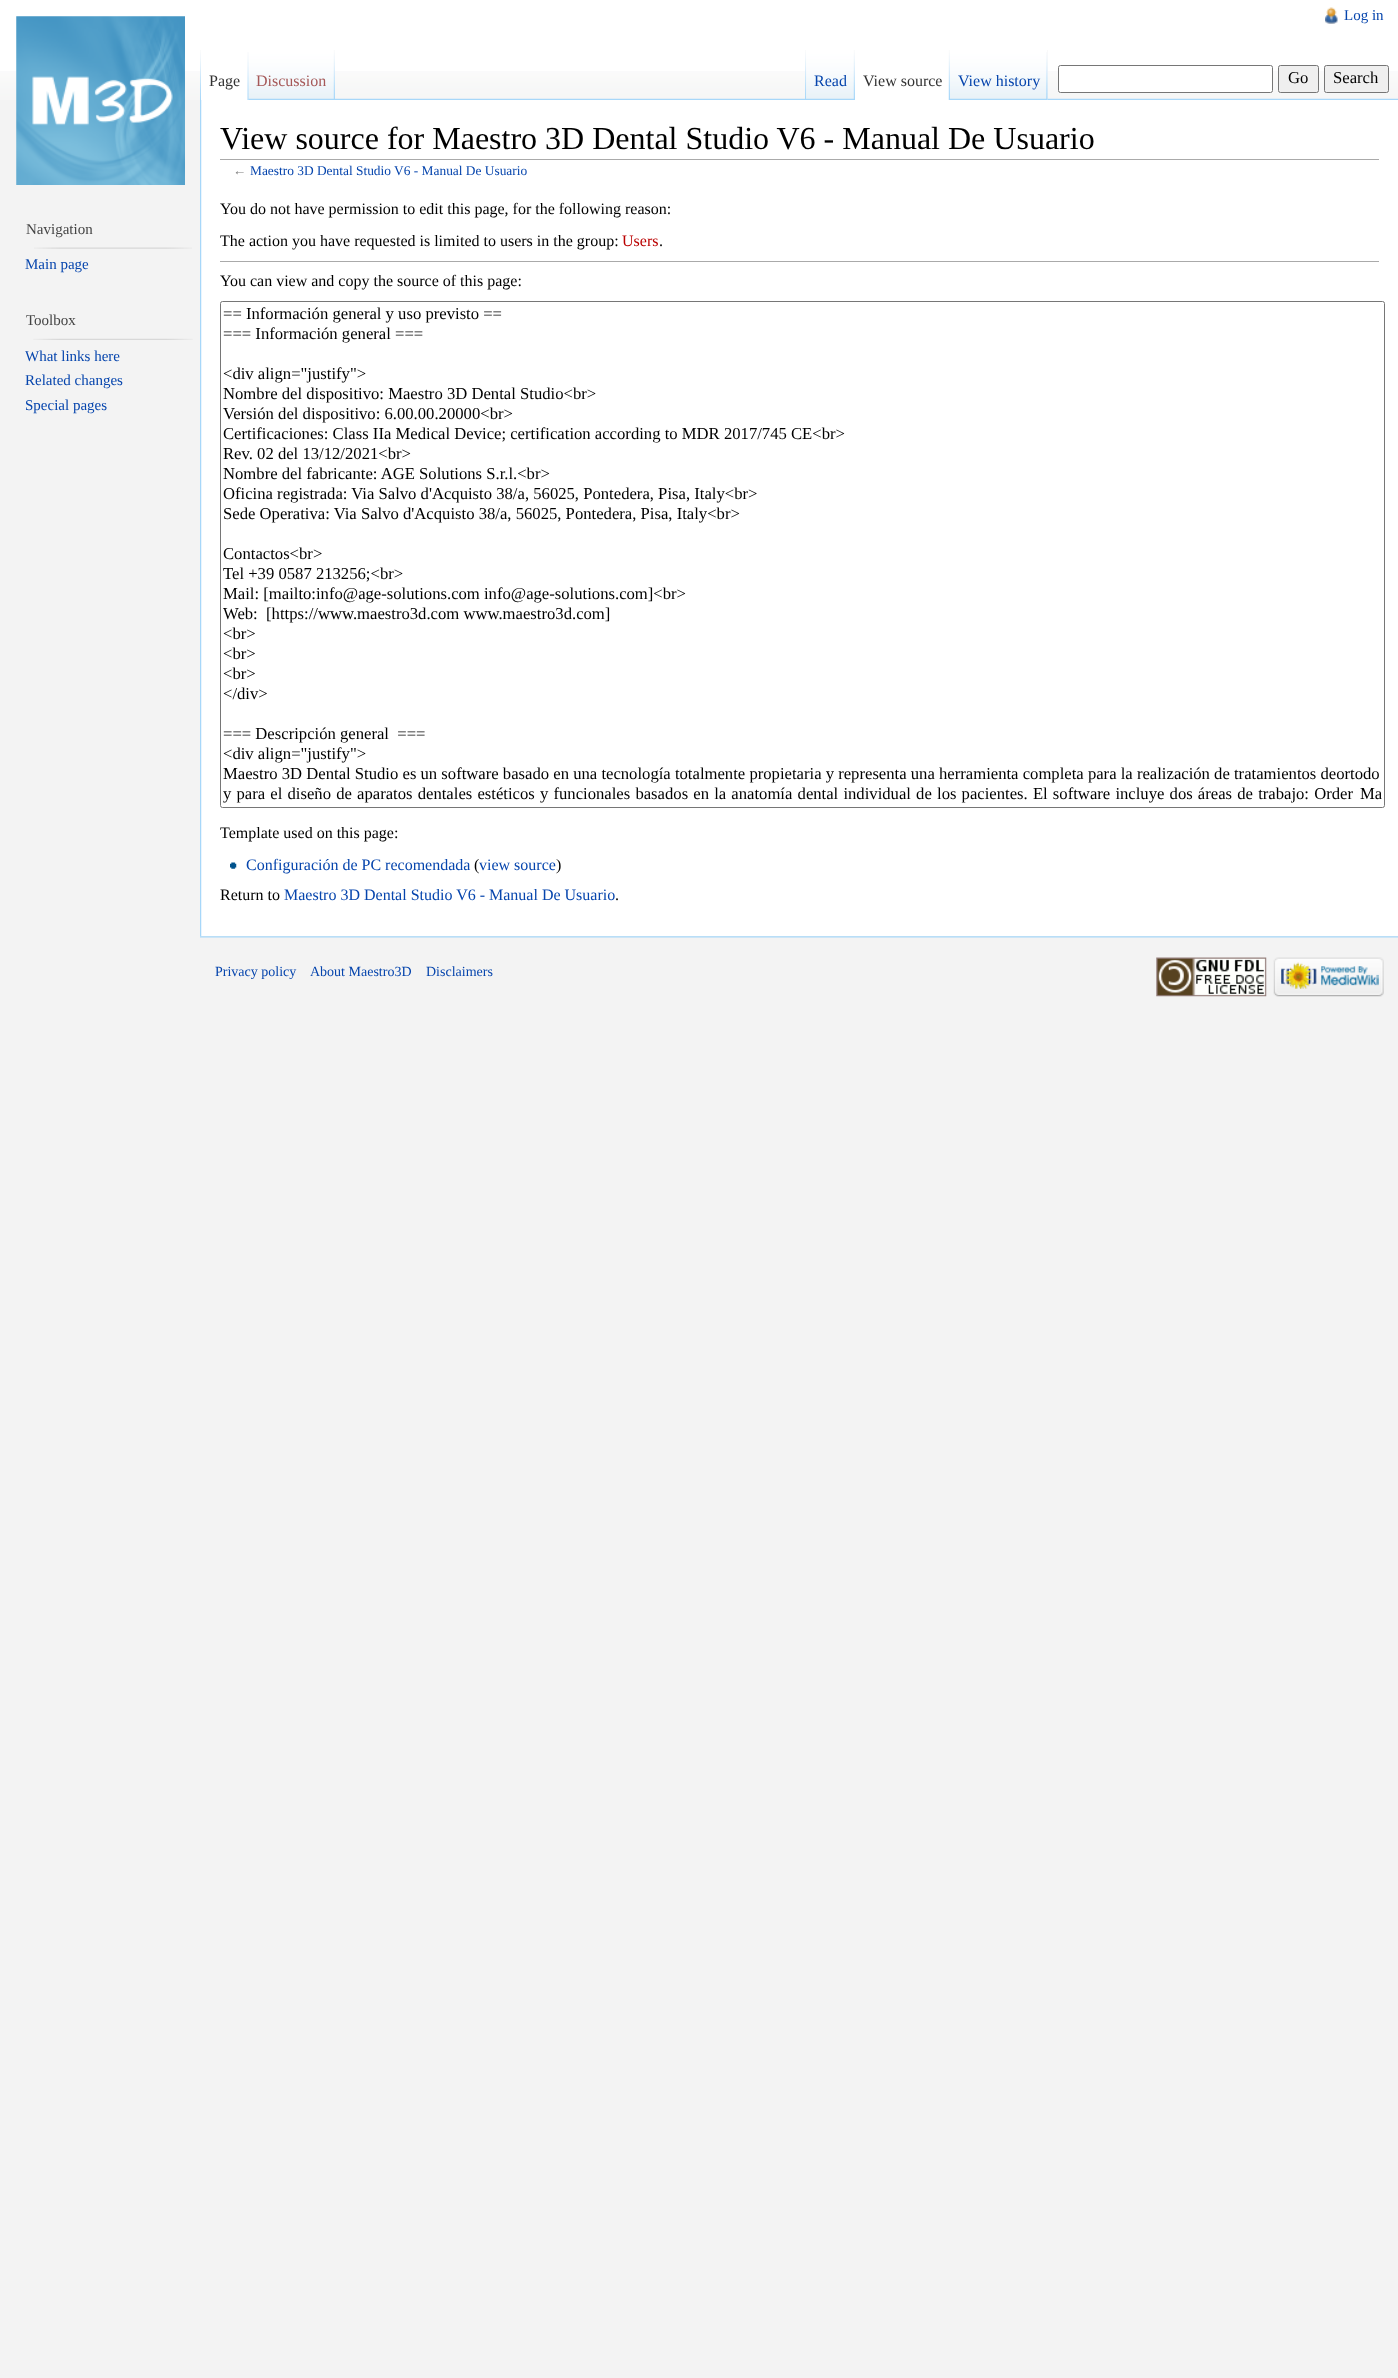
<svg xmlns="http://www.w3.org/2000/svg" xmlns:xlink="http://www.w3.org/1999/xlink" width="1398" height="2378" viewBox="0 0 1398 2378">
<style>
.cls-1{font:15px Liberation Serif;fill:#0645ad}
.cls-2{font:16px Liberation Serif;fill:#333333}
.cls-3{font:16px Liberation Serif;fill:#a55858}
.cls-4{font:16px Liberation Serif;fill:#0645ad}
.cls-5{font:16.67px Liberation Serif;fill:#000000}
.cls-6{font:15px Liberation Serif;fill:#444444}
.cls-7{font:32px Liberation Serif;fill:#000000}
.cls-8{font:13.4px Liberation Serif;fill:#7d7d7d}
.cls-9{font:13.4px Liberation Serif;fill:#0645ad}
.cls-10{font:16px Liberation Serif;fill:#000000}
.cls-11{font:16px Liberation Serif;fill:#ba0000}
.cls-12{font:14px Liberation Serif;fill:#0645ad}
</style>
<rect width="100%" height="100%" fill="#f3f3f3"/>
<rect fill="#ffffff" x="0" y="0" width="1398" height="71"/>
<image xlink:href="image0.png" x="0" y="71" width="1398" height="29"/>
<image xlink:href="image1.png" x="1325" y="7" width="13" height="17"/>
<image xlink:href="image11.png" x="200" y="98" width="1198" height="2"/>
<image xlink:href="image2.png" x="200" y="50" width="1" height="49"/>
<rect fill="#ffffff" x="201" y="71" width="48" height="29"/>
<image xlink:href="image3.png" x="247" y="52" width="2" height="48"/>
<image xlink:href="image4.png" x="248" y="50" width="87" height="50"/>
<image xlink:href="image5.png" x="333" y="50" width="2" height="49"/>
<image xlink:href="image6.png" x="805" y="50" width="2" height="49"/>
<image xlink:href="image7.png" x="806" y="50" width="49" height="50"/>
<image xlink:href="image5.png" x="853" y="50" width="2" height="49"/>
<rect fill="#ffffff" x="855" y="71" width="94" height="29"/>
<image xlink:href="image8.png" x="948" y="50" width="2" height="50"/>
<rect fill="#f3f3f3" x="1047" y="50" width="1" height="50"/>
<image xlink:href="image9.png" x="950" y="50" width="98" height="50"/>
<image xlink:href="image10.png" x="1046" y="52" width="2" height="48"/>
<rect fill="#ffffff" stroke="#767676" x="1058.5" y="65.5" width="214" height="27" rx="2"/>
<rect fill="#efefef" stroke="#767676" x="1278.5" y="65.5" width="40" height="27" rx="2"/>
<rect fill="#efefef" stroke="#767676" x="1324.5" y="65.5" width="64" height="27" rx="2"/>
<image xlink:href="image12.png" x="16" y="16" width="169" height="169"/>
<image xlink:href="image13.png" x="34" y="247" width="158" height="2"/>
<image xlink:href="image14.png" x="33" y="338" width="160" height="2"/>
<rect fill="#ffffff" x="201" y="100" width="1197" height="836"/>
<image xlink:href="image15.png" x="200" y="100" width="2" height="837"/>
<rect fill="#aaaaaa" x="220" y="159" width="1159" height="1"/>
<rect fill="#aaaaaa" x="220" y="261" width="1159" height="1"/>
<rect fill="none" stroke="#767676" x="220.5" y="301.5" width="1164" height="506" rx="2"/>
<image xlink:href="image16.png" x="230" y="862" width="7" height="7"/>
<image xlink:href="image17.png" x="200" y="936" width="1198" height="2"/>
<image xlink:href="image18.png" x="1156" y="957" width="111" height="40"/>
<image xlink:href="image19.png" x="1273" y="957" width="111" height="40"/>
<text class="cls-1" x="1344" y="20">Log in</text>
<text class="cls-2" x="209" y="86">Page</text>
<text class="cls-3" x="256" y="86">Discussion</text>
<text class="cls-4" x="814" y="86">Read</text>
<text class="cls-2" x="863" y="86">View source</text>
<text class="cls-4" x="958" y="86">View history</text>
<text class="cls-5" x="1288" y="83">Go</text>
<text class="cls-5" x="1333" y="83">Search</text>
<text class="cls-6" x="26" y="234">Navigation</text>
<text class="cls-1" x="25" y="269">Main page</text>
<text class="cls-6" x="26" y="325">Toolbox</text>
<text class="cls-1"><tspan x="25" y="361">What links here</tspan><tspan x="25" y="385">Related changes</tspan><tspan x="25" y="410">Special pages</tspan></text>
<text class="cls-7" x="220" y="149">View source for Maestro 3D Dental Studio V6 - Manual De Usuario</text>
<text class="cls-8" x="233" y="175">←</text>
<text class="cls-9" x="250" y="175">Maestro 3D Dental Studio V6 - Manual De Usuario</text>
<text class="cls-10" x="220" y="214">You do not have permission to edit this page, for the following reason:</text>
<text class="cls-10" x="220" y="246">The action you have requested is limited to users in the group:</text>
<text class="cls-11" x="622" y="246">Users</text>
<text class="cls-10" x="659" y="246">.</text>
<text class="cls-10" x="220" y="286">You can view and copy the source of this page:</text>
<text class="cls-5"><tspan x="223" y="319">== Información general y uso previsto ==</tspan><tspan x="223" y="339">=== Información general ===</tspan></text>
<text class="cls-5"><tspan x="223" y="379">&lt;div align="justify"&gt;</tspan><tspan x="223" y="399">Nombre del dispositivo: Maestro 3D Dental Studio&lt;br&gt;</tspan><tspan x="223" y="419">Versión del dispositivo: 6.00.00.20000&lt;br&gt;</tspan><tspan x="223" y="439">Certificaciones: Class IIa Medical Device; certification according to MDR 2017/745 CE&lt;br&gt;</tspan><tspan x="223" y="459">Rev. 02 del 13/12/2021&lt;br&gt;</tspan><tspan x="223" y="479">Nombre del fabricante: AGE Solutions S.r.l.&lt;br&gt;</tspan><tspan x="223" y="499">Oficina registrada: Via Salvo d'Acquisto 38/a, 56025, Pontedera, Pisa, Italy&lt;br&gt;</tspan><tspan x="223" y="519">Sede Operativa: Via Salvo d'Acquisto 38/a, 56025, Pontedera, Pisa, Italy&lt;br&gt;</tspan></text>
<text class="cls-5" xml:space="preserve"><tspan x="223" y="559">Contactos&lt;br&gt;</tspan><tspan x="223" y="579">Tel +39 0587 213256;&lt;br&gt;</tspan><tspan x="223" y="599">Mail: [mailto:info@age-solutions.com info@age-solutions.com]&lt;br&gt;</tspan><tspan x="223" y="619">Web:  [https://www.maestro3d.com www.maestro3d.com]</tspan><tspan x="223" y="639">&lt;br&gt;</tspan><tspan x="223" y="659">&lt;br&gt;</tspan><tspan x="223" y="679">&lt;br&gt;</tspan><tspan x="223" y="699">&lt;/div&gt;</tspan></text>
<text class="cls-5" xml:space="preserve"><tspan x="223" y="739">=== Descripción general  ===</tspan><tspan x="223" y="759">&lt;div align="justify"&gt;</tspan><tspan x="223" y="779">Maestro 3D Dental Studio es un software basado en una tecnología totalmente propietaria y representa una herramienta completa para la realización de tratamientos deortodo</tspan><tspan x="223" y="799" word-spacing="1">y para el diseño de aparatos dentales estéticos y funcionales basados en la anatomía dental individual de los pacientes. El software incluye dos áreas de trabajo: Order</tspan></text>
<text class="cls-5" x="1360" y="799">Ma</text>
<text class="cls-10" x="220" y="838">Template used on this page:</text>
<text class="cls-4" x="246" y="870">Configuración de PC recomendada</text>
<text class="cls-10" x="474" y="870">(</text>
<text class="cls-4" x="479" y="870">view source</text>
<text class="cls-10" x="556" y="870">)</text>
<text class="cls-10" x="220" y="900">Return to</text>
<text class="cls-4" x="284" y="900">Maestro 3D Dental Studio V6 - Manual De Usuario</text>
<text class="cls-10" x="615" y="900">.</text>
<text class="cls-12" x="215" y="976">Privacy policy</text>
<text class="cls-12" x="310" y="976">About Maestro3D</text>
<text class="cls-12" x="426" y="976">Disclaimers</text>
</svg>
